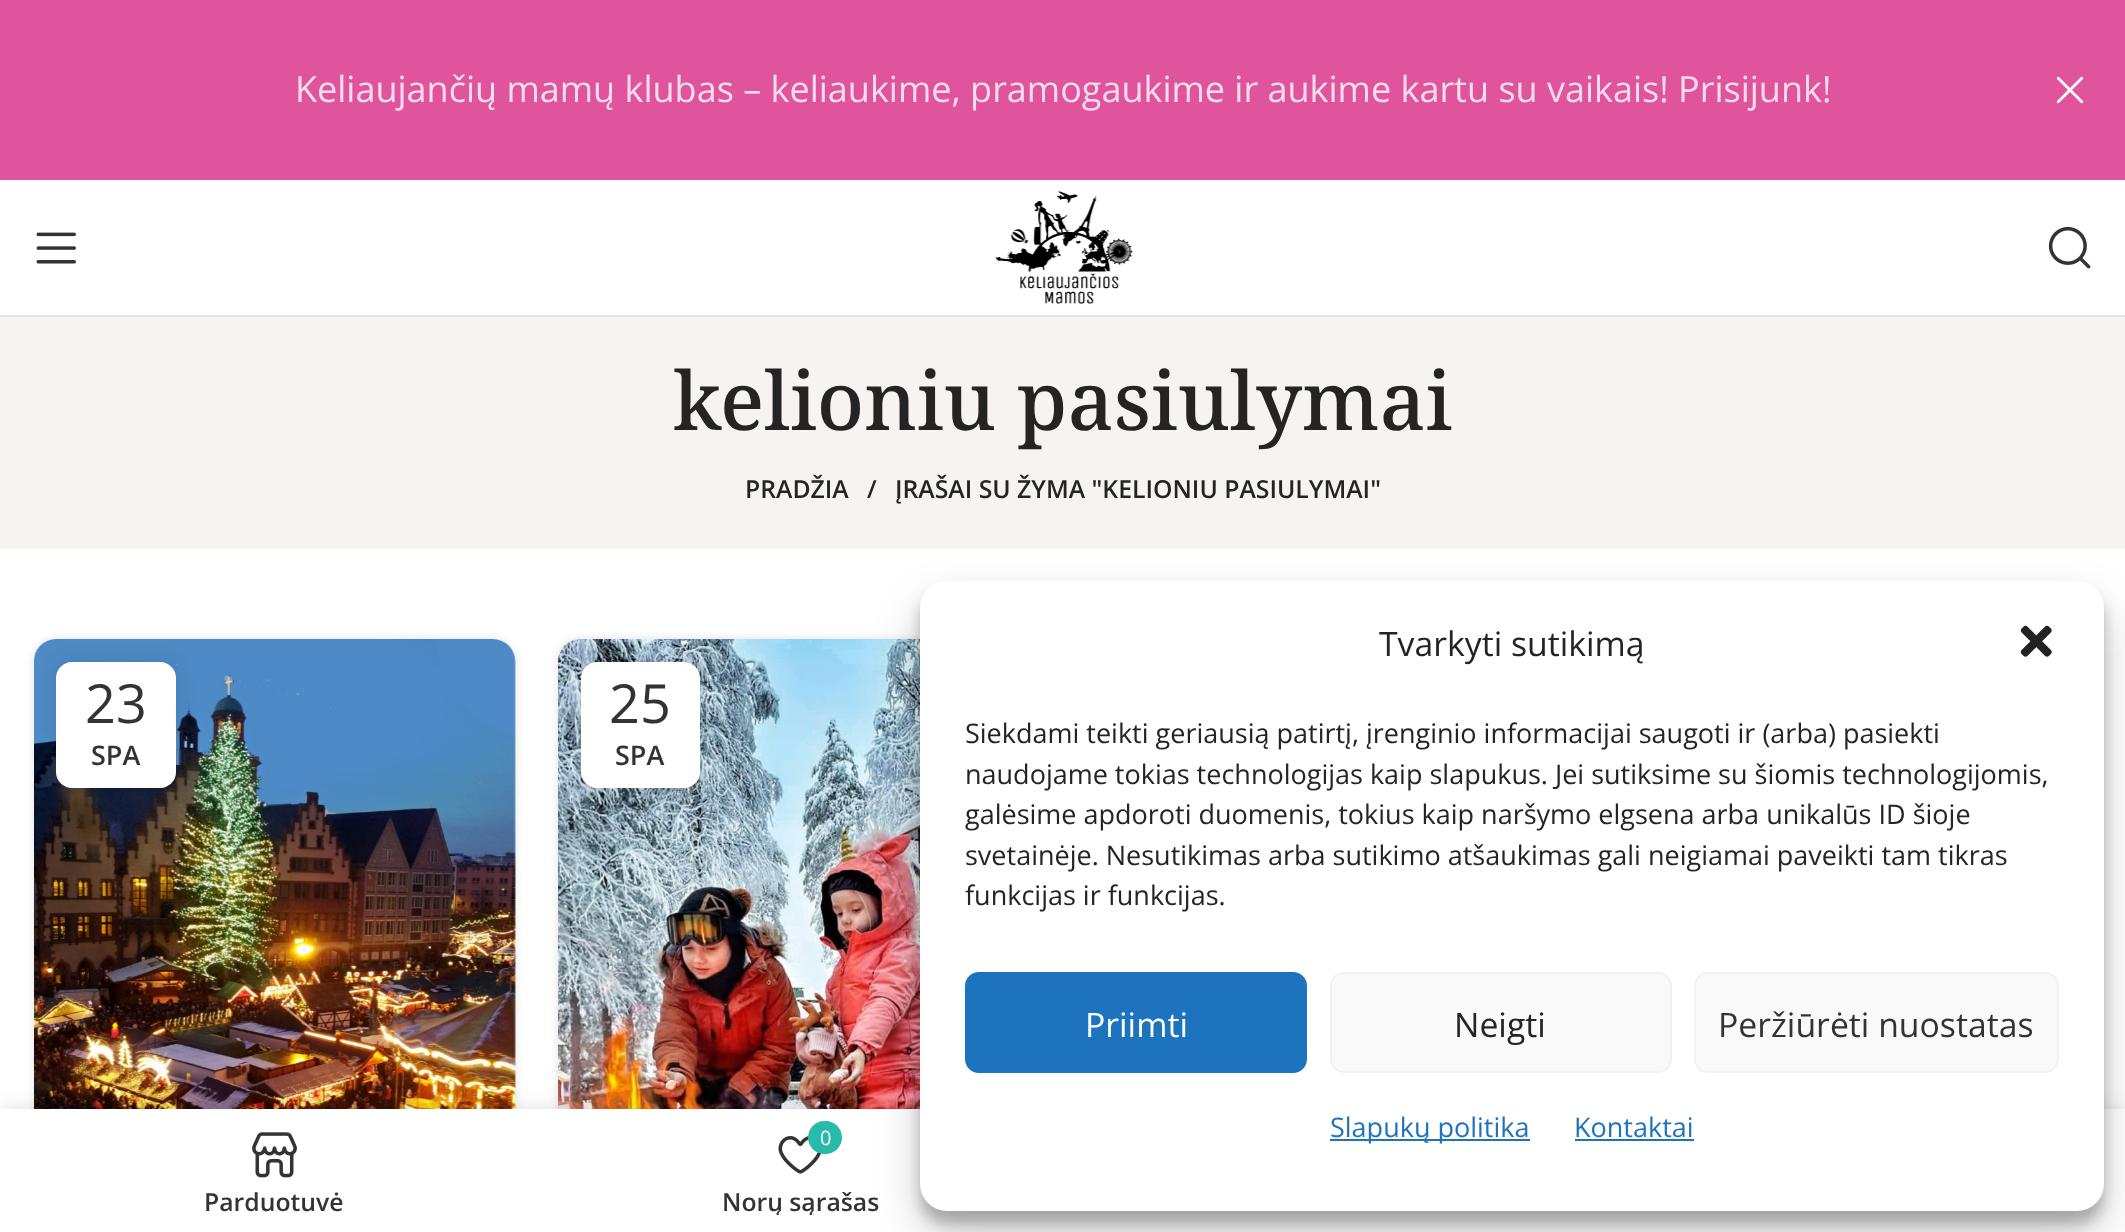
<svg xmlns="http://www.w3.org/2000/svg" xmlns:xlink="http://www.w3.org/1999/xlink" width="2125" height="1232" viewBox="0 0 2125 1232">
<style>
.cls-1{font:36px Open Sans;fill:#f9ddeb}
.cls-2{font:500 81px Noto Serif;fill:#242424}
.cls-3{font:600 24.75px Open Sans;fill:#242424}
.cls-4{font:54px Open Sans;fill:#333333}
.cls-5{font:600 27px Open Sans;fill:#333333}
.cls-6{font:33.75px Open Sans;fill:#242424}
.cls-7{font:27px Open Sans;fill:#242424}
.cls-8{font:33.75px Open Sans;fill:#ffffff}
.cls-9{font:33.75px Open Sans;fill:#333333}
.cls-10{font:27px Open Sans;fill:#1e73be}
.cls-11{font:600 24.75px Open Sans;fill:#333333}
.cls-12{font:20px Open Sans;fill:#ffffff}
</style>
<defs>
<clipPath id="clip1"><rect x="560" y="1186" width="482" height="29"/></clipPath>
</defs>
<rect width="100%" height="100%" fill="#ffffff"/>
<rect fill="#df549d" x="0" y="0" width="2125" height="180"/>
<image xlink:href="image0.png" x="2056" y="76" width="28" height="28"/>
<rect fill="#e4e4e4" x="0" y="315" width="2125" height="2"/>
<image xlink:href="image1.png" x="36" y="232" width="40" height="32"/>
<image xlink:href="image2.png" x="995" y="191" width="138" height="113"/>
<image xlink:href="image3.png" x="2048" y="227" width="43" height="42"/>
<rect fill="#f7f3f0" x="0" y="317" width="2125" height="232"/>
<rect fill="#000000" fill-opacity="0.12" filter="blur(4.5px)" x="34" y="639" width="481" height="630" rx="23"/>
<image xlink:href="image4.png" x="34" y="639" width="482" height="470"/>
<rect fill="#000000" fill-opacity="0.1" filter="blur(10px)" x="56" y="662" width="120" height="126" rx="16"/>
<rect fill="#ffffff" x="56" y="662" width="120" height="126" rx="16"/>
<rect fill="#000000" fill-opacity="0.12" filter="blur(4.5px)" x="558" y="639" width="482" height="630" rx="23"/>
<image xlink:href="image5.png" x="558" y="639" width="362" height="470"/>
<rect fill="#000000" fill-opacity="0.1" filter="blur(10px)" x="581" y="662" width="119" height="126" rx="16"/>
<rect fill="#ffffff" x="581" y="662" width="119" height="126" rx="16"/>
<rect fill="#000000" fill-opacity="0.12" filter="blur(10px)" x="0" y="1109" width="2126" height="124"/>
<rect fill="#ffffff" x="0" y="1109" width="2125" height="123"/>
<rect fill="#000000" fill-opacity="0.23" filter="blur(7px)" x="920" y="594" width="1184" height="630" rx="27"/>
<rect fill="#000000" fill-opacity="0.19" filter="blur(22.5px)" x="920" y="603" width="1184" height="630" rx="27"/>
<rect fill="#ffffff" x="920" y="581" width="1184" height="630" rx="27"/>
<image xlink:href="image6.png" x="2020" y="625" width="32" height="32"/>
<rect fill="#1e73be" stroke="#1e73be" stroke-width="2" x="966" y="973" width="340" height="99" rx="13"/>
<rect fill="#f9f9f9" stroke="#f2f2f2" stroke-width="2" x="1331" y="973" width="340" height="99" rx="13"/>
<rect fill="#f9f9f9" stroke="#f2f2f2" stroke-width="2" x="1695" y="973" width="363" height="99" rx="13"/>
<rect fill="#1e73be" x="1330" y="1139" width="200" height="2"/>
<rect fill="#1e73be" x="1575" y="1139" width="119" height="2"/>
<image xlink:href="image7.png" x="252" y="1132" width="45" height="46"/>
<image xlink:href="image8.png" x="778" y="1136" width="44" height="38"/>
<rect fill="#2abaaa" x="808" y="1121" width="34" height="33" rx="16.5"/>
<text class="cls-1" x="295" y="102">Keliaujančių mamų klubas – keliaukime, pramogaukime ir aukime kartu su vaikais! Prisijunk!</text>
<text class="cls-2" x="673" y="430">kelioniu pasiulymai</text>
<text class="cls-3" x="745" y="498">PRADŽIA</text>
<text class="cls-3" x="867" y="498">/</text>
<text class="cls-3" x="895" y="498">ĮRAŠAI SU ŽYMA "KELIONIU PASIULYMAI"</text>
<text class="cls-4" x="85" y="723">23</text>
<text class="cls-5" x="91" y="765">SPA</text>
<text class="cls-4" x="609" y="723">25</text>
<text class="cls-5" x="615" y="765">SPA</text>
<text class="cls-6" x="1379" y="656">Tvarkyti sutikimą</text>
<text class="cls-7"><tspan x="965" y="743">Siekdami teikti geriausią patirtį, įrenginio informacijai saugoti ir (arba) pasiekti</tspan><tspan x="965" y="784">naudojame tokias technologijas kaip slapukus. Jei sutiksime su šiomis technologijomis,</tspan><tspan x="965" y="824">galėsime apdoroti duomenis, tokius kaip naršymo elgsena arba unikalūs ID šioje</tspan><tspan x="965" y="865">svetainėje. Nesutikimas arba sutikimo atšaukimas gali neigiamai paveikti tam tikras</tspan><tspan x="965" y="905">funkcijas ir funkcijas.</tspan></text>
<text class="cls-8" x="1085" y="1037">Priimti</text>
<text class="cls-6" x="1454" y="1037">Neigti</text>
<text class="cls-9" x="1718" y="1037">Peržiūrėti nuostatas</text>
<text class="cls-10" x="1330" y="1137">Slapukų politika</text>
<text class="cls-10" x="1574" y="1137">Kontaktai</text>
<text class="cls-11" x="204" y="1211">Parduotuvė</text>
<text class="cls-12" x="820" y="1145">0</text>
<g clip-path="url(#clip1)">
<text class="cls-11" x="722" y="1211">Norų sąrašas</text>
</g>
</svg>
